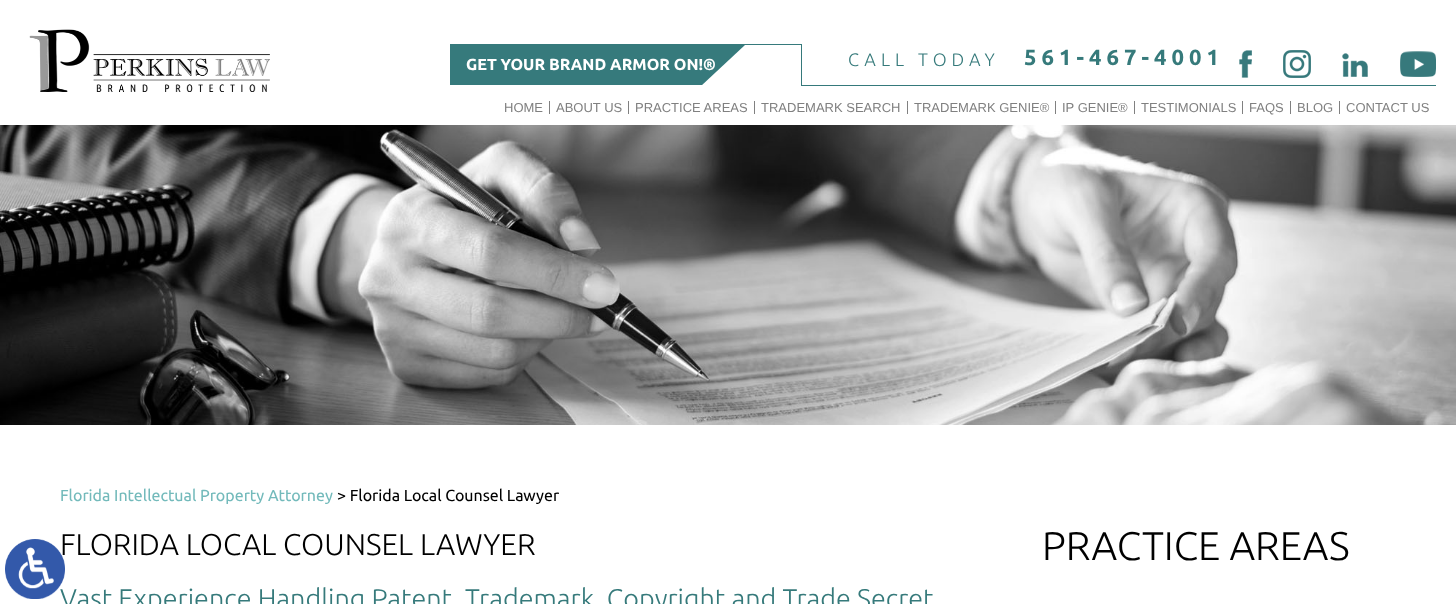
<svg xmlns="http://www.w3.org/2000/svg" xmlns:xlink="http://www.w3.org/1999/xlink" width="1456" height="604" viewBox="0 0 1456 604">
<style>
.cls-1{font:bold 16px Ubuntu;fill:#ffffff}
.cls-2{font:300 18px Ubuntu;letter-spacing:5px;fill:#367a7b}
.cls-3{font:bold 22px Ubuntu;letter-spacing:5px;fill:#367a7b}
.cls-4{font:13px Liberation Sans;fill:#808080}
.cls-5{font:16px Ubuntu;fill:#73babb}
.cls-6{font:16px Ubuntu;fill:#000000}
.cls-7{font:300 30px Ubuntu;fill:#000000}
.cls-8{font:300 27px Ubuntu;fill:#367a7b}
.cls-9{font:300 40px Ubuntu;fill:#000000}
</style>
<rect width="100%" height="100%" fill="#ffffff"/>
<image xlink:href="image1.png" x="29" y="29" width="241" height="63"/>
<rect fill="#367a7c" x="450" y="44" width="351" height="41"/>
<path fill="#ffffff" d="M701 86H801V45H745Z"/>
<rect fill="#35797b" x="801" y="44" width="1" height="42"/>
<rect fill="#35797b" x="802" y="85" width="634" height="1"/>
<image xlink:href="image2.png" x="1239" y="50" width="13" height="28"/>
<image xlink:href="image3.png" x="1283" y="50" width="28" height="28"/>
<image xlink:href="image4.png" x="1342" y="53" width="26" height="24"/>
<image xlink:href="image5.png" x="1400" y="51" width="36" height="26"/>
<rect fill="#808080" x="549" y="101" width="1" height="13"/>
<rect fill="#808080" x="628" y="101" width="1" height="13"/>
<rect fill="#808080" x="754" y="101" width="1" height="13"/>
<rect fill="#808080" x="907" y="101" width="1" height="13"/>
<rect fill="#808080" x="1055" y="101" width="1" height="13"/>
<rect fill="#808080" x="1134" y="101" width="1" height="13"/>
<rect fill="#808080" x="1242" y="101" width="1" height="13"/>
<rect fill="#808080" x="1290" y="101" width="1" height="13"/>
<rect fill="#808080" x="1339" y="101" width="1" height="13"/>
<image xlink:href="image6.png" x="0" y="125" width="1456" height="300"/>
<text class="cls-1" x="466" y="70">GET YOUR BRAND ARMOR ON!®</text>
<text class="cls-2" x="848" y="66">CALL TODAY</text>
<text class="cls-3" x="1024" y="65">561-467-4001</text>
<text class="cls-4" x="504" y="112">HOME</text>
<text class="cls-4" x="556" y="112">ABOUT US</text>
<text class="cls-4" x="635" y="112">PRACTICE AREAS</text>
<text class="cls-4" x="761" y="112">TRADEMARK SEARCH</text>
<text class="cls-4" x="914" y="112">TRADEMARK GENIE®</text>
<text class="cls-4" x="1062" y="112">IP GENIE®</text>
<text class="cls-4" x="1141" y="112">TESTIMONIALS</text>
<text class="cls-4" x="1249" y="112">FAQS</text>
<text class="cls-4" x="1297" y="112">BLOG</text>
<text class="cls-4" x="1346" y="112">CONTACT US</text>
<text class="cls-5" x="60" y="501">Florida Intellectual Property Attorney</text>
<text class="cls-6" x="337" y="501">&gt; Florida Local Counsel Lawyer</text>
<text class="cls-7" x="60" y="555">FLORIDA LOCAL COUNSEL LAWYER</text>
<text class="cls-8" x="60" y="608">Vast Experience Handling Patent, Trademark, Copyright and Trade Secret</text>
<image xlink:href="image0.png" x="5" y="539" width="60" height="60"/>
<text class="cls-9" x="1042" y="560">PRACTICE AREAS</text>
</svg>
